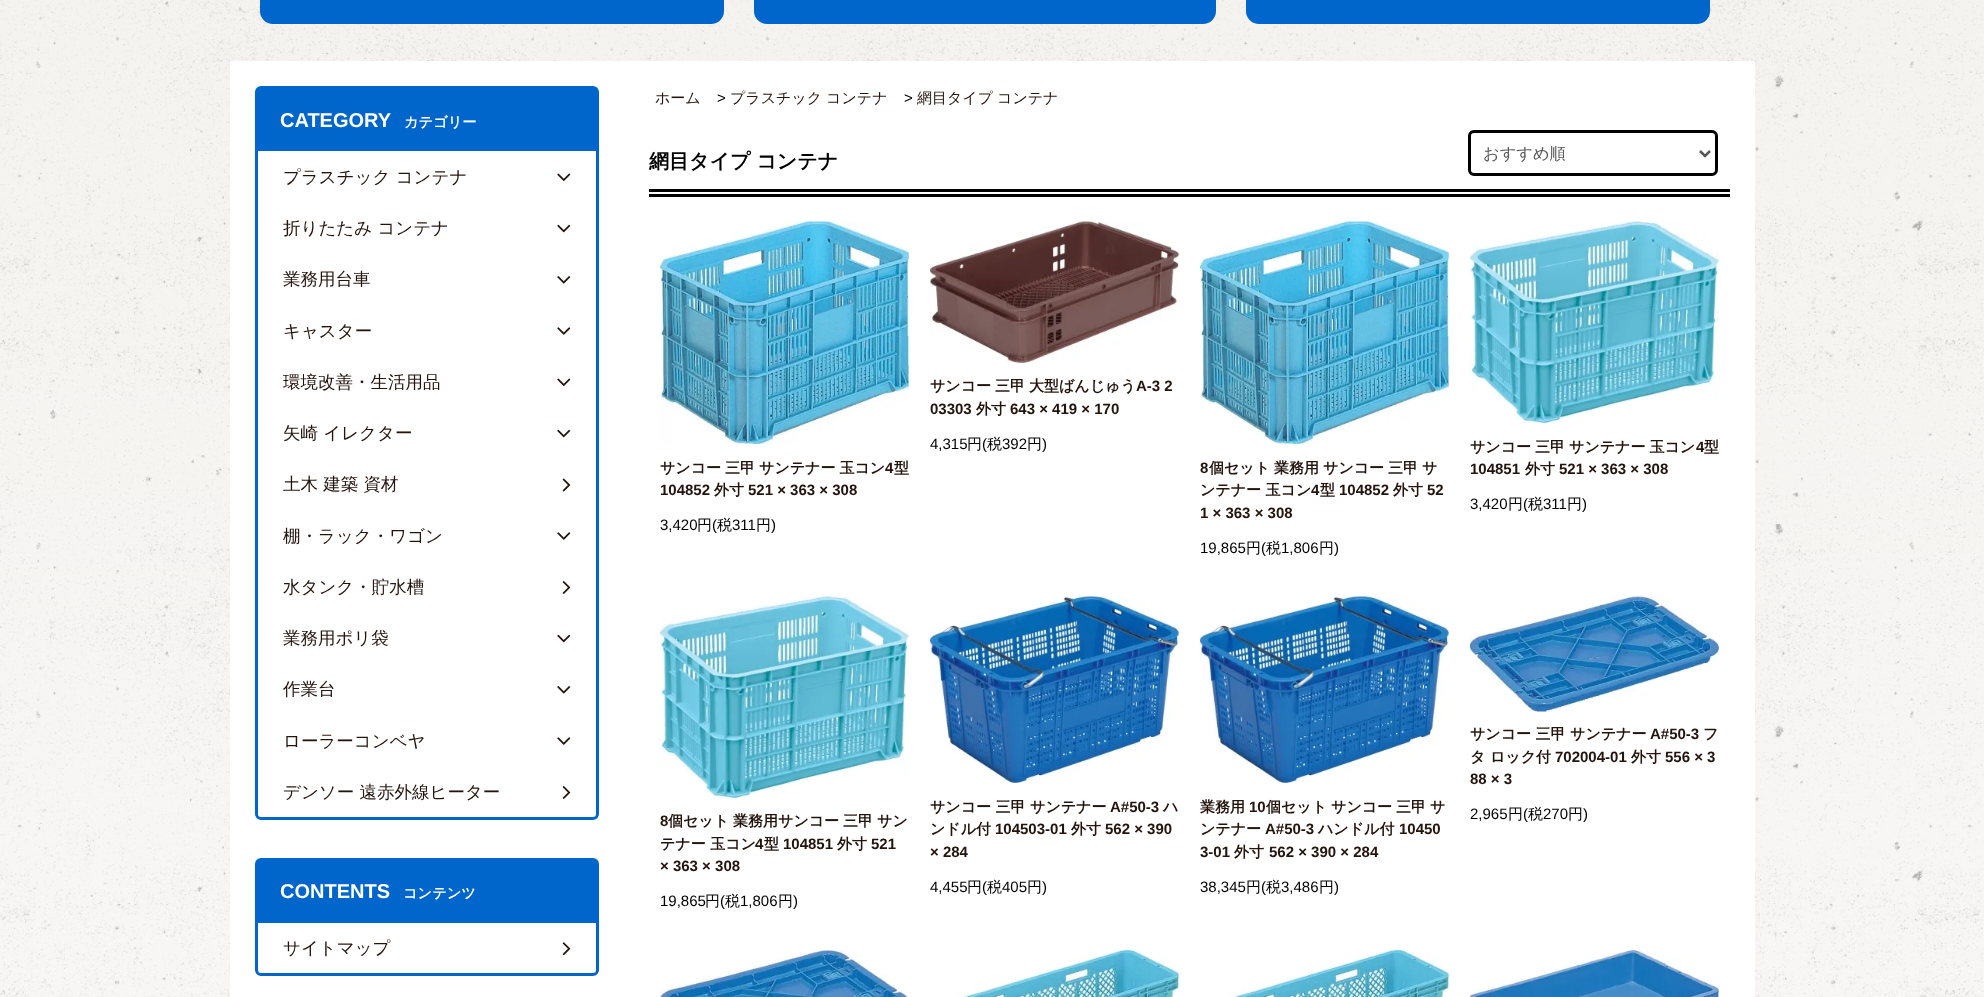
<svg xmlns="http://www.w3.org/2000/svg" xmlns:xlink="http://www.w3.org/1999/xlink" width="1984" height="997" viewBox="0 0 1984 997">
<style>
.cls-1{font:bold 20px Liberation Sans;fill:#ffffff}
.cls-2{font:bold 14.25px WenQuanYi Zen Hei;fill:#ffffff}
.cls-3{font:500 17.5px WenQuanYi Zen Hei;fill:#24140e}
.cls-4{font:500 15px WenQuanYi Zen Hei;fill:#24140e}
.cls-5{font:15px Liberation Sans;fill:#000000}
.cls-6{font:bold 20px WenQuanYi Zen Hei;fill:#000000}
.cls-7{font:500 16.25px WenQuanYi Zen Hei;fill:#555555}
.cls-8{font:bold 15px WenQuanYi Zen Hei;fill:#24140e}
.cls-9{font:bold 15px Liberation Sans;fill:#24140e}
.cls-10{font:500 15px WenQuanYi Zen Hei;fill:#000000}
</style>
<rect width="100%" height="100%" fill="#ffffff"/>
<image xlink:href="image0.png" x="0" y="0" width="1984" height="997"/>
<rect fill="#0066cc" stroke="#0066cc" stroke-width="3" x="261.5" y="-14.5" width="461" height="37" rx="11.5"/>
<rect fill="#0066cc" stroke="#0066cc" stroke-width="3" x="755.5" y="-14.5" width="459" height="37" rx="11.5"/>
<rect fill="#0066cc" stroke="#0066cc" stroke-width="3" x="1247.5" y="-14.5" width="461" height="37" rx="11.5"/>
<rect fill="#ffffff" x="230" y="61" width="1525" height="936"/>
<rect fill="none" stroke="#0066cc" stroke-width="3" x="256.5" y="87.5" width="341" height="731" rx="4.5"/>
<rect fill="#0066cc" x="258" y="89" width="338" height="62"/>
<image xlink:href="image1.png" x="557" y="173" width="14" height="8"/>
<image xlink:href="image2.png" x="557" y="224" width="14" height="9"/>
<image xlink:href="image3.png" x="557" y="276" width="14" height="8"/>
<image xlink:href="image4.png" x="557" y="327" width="14" height="8"/>
<image xlink:href="image1.png" x="557" y="378" width="14" height="8"/>
<image xlink:href="image2.png" x="557" y="429" width="14" height="9"/>
<image xlink:href="image5.png" x="562" y="478" width="9" height="14"/>
<image xlink:href="image4.png" x="557" y="532" width="14" height="8"/>
<image xlink:href="image6.png" x="562" y="581" width="9" height="13"/>
<image xlink:href="image2.png" x="557" y="634" width="14" height="9"/>
<image xlink:href="image3.png" x="557" y="686" width="14" height="8"/>
<image xlink:href="image4.png" x="557" y="737" width="14" height="8"/>
<image xlink:href="image6.png" x="562" y="786" width="9" height="13"/>
<rect fill="none" stroke="#0066cc" stroke-width="3" x="256.5" y="859.5" width="341" height="115" rx="4.5"/>
<rect fill="#0066cc" x="258" y="861" width="338" height="62"/>
<image xlink:href="image7.png" x="562" y="942" width="9" height="14"/>
<rect fill="#000000" x="649" y="189" width="1081" height="3"/>
<rect fill="#000000" x="649" y="194" width="1081" height="3"/>
<rect fill="none" stroke="#000000" stroke-width="3" x="1469.5" y="131.5" width="247" height="43" rx="4.5"/>
<path fill="none" stroke="#555555" stroke-width="2.5" d="M1700 151L1705 156L1710 151"/>
<image xlink:href="image8.png" x="930" y="221" width="249" height="142"/>
<image xlink:href="image9.png" x="660" y="221" width="249" height="223"/>
<image xlink:href="image10.png" x="1200" y="221" width="249" height="223"/>
<image xlink:href="image11.png" x="1470" y="221" width="249" height="202"/>
<image xlink:href="image12.png" x="1470" y="596" width="249" height="116"/>
<image xlink:href="image11.png" x="660" y="596" width="249" height="202"/>
<image xlink:href="image13.png" x="930" y="596" width="249" height="187"/>
<image xlink:href="image14.png" x="1200" y="596" width="249" height="187"/>
<image xlink:href="image15.png" x="660" y="950" width="249" height="47"/>
<image xlink:href="image16.png" x="956" y="950" width="223" height="47"/>
<image xlink:href="image17.png" x="1226" y="950" width="223" height="47"/>
<image xlink:href="image18.png" x="1470" y="950" width="249" height="47"/>
<text class="cls-1" x="280" y="127">CATEGORY</text>
<text class="cls-2" x="404" y="127">カテゴリー</text>
<text class="cls-3" x="283" y="183">プラスチック コンテナ</text>
<text class="cls-3" x="283" y="234">折りたたみ コンテナ</text>
<text class="cls-3" x="283" y="285">業務用台車</text>
<text class="cls-3" x="283" y="337">キャスター</text>
<text class="cls-3" x="283" y="388">環境改善・生活用品</text>
<text class="cls-3" x="283" y="439">矢崎 イレクター</text>
<text class="cls-3" x="283" y="490">土木 建築 資材</text>
<text class="cls-3" x="283" y="542">棚・ラック・ワゴン</text>
<text class="cls-3" x="283" y="593">水タンク・貯水槽</text>
<text class="cls-3" x="283" y="644">業務用ポリ袋</text>
<text class="cls-3" x="283" y="695">作業台</text>
<text class="cls-3" x="283" y="747">ローラーコンベヤ</text>
<text class="cls-3" x="283" y="798">デンソー 遠赤外線ヒーター</text>
<text class="cls-1" x="280" y="898">CONTENTS</text>
<text class="cls-2" x="403" y="898">コンテンツ</text>
<text class="cls-3" x="283" y="954">サイトマップ</text>
<text class="cls-4" x="655" y="103">ホーム</text>
<text class="cls-5" x="717" y="103">&gt;</text>
<text class="cls-4" x="730" y="103" word-spacing="-0.5">プラスチック コンテナ</text>
<text class="cls-5" x="904" y="103">&gt;</text>
<text class="cls-4" x="917" y="103" word-spacing="-0.5">網目タイプ コンテナ</text>
<text class="cls-6" x="649" y="168">網目タイプ コンテナ</text>
<text class="cls-7" x="1483" y="159">おすすめ順</text>
<text class="cls-8" x="930" y="391">サンコー</text>
<text class="cls-8" x="995" y="391">三甲</text>
<text class="cls-8" x="1029" y="391">大型ばんじゅう</text>
<text class="cls-9" x="1136" y="391">A-3 2</text>
<text class="cls-9" x="930" y="414">03303</text>
<text class="cls-8" x="976" y="414">外寸</text>
<text class="cls-9" x="1010" y="414">643 × 419 × 170</text>
<text class="cls-5" x="930" y="449">4,315</text>
<text class="cls-10" x="967" y="449">円</text>
<text class="cls-5" x="982" y="449">(</text>
<text class="cls-10" x="987" y="449">税</text>
<text class="cls-5" x="1002" y="449">392</text>
<text class="cls-10" x="1027" y="449">円</text>
<text class="cls-5" x="1042" y="449">)</text>
<text class="cls-8" x="660" y="473" word-spacing="-0.5">サンコー 三甲 サンテナー 玉コン</text>
<text class="cls-9" x="885" y="473">4</text>
<text class="cls-8" x="894" y="473">型</text>
<text class="cls-9" x="660" y="495">104852</text>
<text class="cls-8" x="714" y="495">外寸</text>
<text class="cls-9" x="748" y="495">521 × 363 × 308</text>
<text class="cls-5" x="660" y="530">3,420</text>
<text class="cls-10" x="697" y="530">円</text>
<text class="cls-5" x="712" y="530">(</text>
<text class="cls-10" x="717" y="530">税</text>
<text class="cls-5" x="732" y="530">311</text>
<text class="cls-10" x="756" y="530">円</text>
<text class="cls-5" x="771" y="530">)</text>
<text class="cls-9" x="1200" y="473">8</text>
<text class="cls-8" x="1209" y="473" word-spacing="-0.5">個セット 業務用 サンコー 三甲 サ</text>
<text class="cls-8" x="1200" y="495">ンテナー 玉コン</text>
<text class="cls-9" x="1311" y="495">4</text>
<text class="cls-8" x="1320" y="495">型</text>
<text class="cls-9" x="1339" y="495">104852</text>
<text class="cls-8" x="1393" y="495">外寸</text>
<text class="cls-9" x="1427" y="495">52</text>
<text class="cls-9" x="1200" y="518">1 × 363 × 308</text>
<text class="cls-5" x="1200" y="553">19,865</text>
<text class="cls-10" x="1246" y="553">円</text>
<text class="cls-5" x="1261" y="553">(</text>
<text class="cls-10" x="1266" y="553">税</text>
<text class="cls-5" x="1281" y="553">1,806</text>
<text class="cls-10" x="1319" y="553">円</text>
<text class="cls-5" x="1334" y="553">)</text>
<text class="cls-8" x="1470" y="452" word-spacing="-0.5">サンコー 三甲 サンテナー 玉コン</text>
<text class="cls-9" x="1696" y="452">4</text>
<text class="cls-8" x="1704" y="452">型</text>
<text class="cls-9" x="1470" y="474">104851</text>
<text class="cls-8" x="1525" y="474">外寸</text>
<text class="cls-9" x="1559" y="474">521 × 363 × 308</text>
<text class="cls-5" x="1470" y="509">3,420</text>
<text class="cls-10" x="1508" y="509">円</text>
<text class="cls-5" x="1523" y="509">(</text>
<text class="cls-10" x="1528" y="509">税</text>
<text class="cls-5" x="1543" y="509">311</text>
<text class="cls-10" x="1567" y="509">円</text>
<text class="cls-5" x="1582" y="509">)</text>
<text class="cls-8" x="1470" y="739">サンコー 三甲 サンテナー</text>
<text class="cls-9" x="1650" y="739">A#50-3</text>
<text class="cls-8" x="1703" y="739">フ</text>
<text class="cls-8" x="1470" y="762">タ</text>
<text class="cls-8" x="1490" y="762">ロック付</text>
<text class="cls-9" x="1555" y="762">702004-01</text>
<text class="cls-8" x="1631" y="762">外寸</text>
<text class="cls-9" x="1665" y="762">556 × 3</text>
<text class="cls-9" x="1470" y="784">88 × 3</text>
<text class="cls-5" x="1470" y="819">2,965</text>
<text class="cls-10" x="1508" y="819">円</text>
<text class="cls-5" x="1523" y="819">(</text>
<text class="cls-10" x="1528" y="819">税</text>
<text class="cls-5" x="1543" y="819">270</text>
<text class="cls-10" x="1568" y="819">円</text>
<text class="cls-5" x="1583" y="819">)</text>
<text class="cls-9" x="660" y="826">8</text>
<text class="cls-8" x="668" y="826" word-spacing="-0.5">個セット 業務用サンコー 三甲 サン</text>
<text class="cls-8" x="660" y="849">テナー 玉コン</text>
<text class="cls-9" x="755" y="849">4</text>
<text class="cls-8" x="764" y="849">型</text>
<text class="cls-9" x="783" y="849">104851</text>
<text class="cls-8" x="837" y="849">外寸</text>
<text class="cls-9" x="871" y="849">521</text>
<text class="cls-9" x="660" y="871">× 363 × 308</text>
<text class="cls-5" x="660" y="906">19,865</text>
<text class="cls-10" x="705" y="906">円</text>
<text class="cls-5" x="720" y="906">(</text>
<text class="cls-10" x="725" y="906">税</text>
<text class="cls-5" x="740" y="906">1,806</text>
<text class="cls-10" x="778" y="906">円</text>
<text class="cls-5" x="793" y="906">)</text>
<text class="cls-8" x="930" y="812">サンコー 三甲 サンテナー</text>
<text class="cls-9" x="1110" y="812">A#50-3</text>
<text class="cls-8" x="1163" y="812">ハ</text>
<text class="cls-8" x="930" y="834">ンドル付</text>
<text class="cls-9" x="995" y="834">104503-01</text>
<text class="cls-8" x="1071" y="834">外寸</text>
<text class="cls-9" x="1105" y="834">562 × 390</text>
<text class="cls-9" x="930" y="857">× 284</text>
<text class="cls-5" x="930" y="892">4,455</text>
<text class="cls-10" x="967" y="892">円</text>
<text class="cls-5" x="982" y="892">(</text>
<text class="cls-10" x="987" y="892">税</text>
<text class="cls-5" x="1002" y="892">405</text>
<text class="cls-10" x="1027" y="892">円</text>
<text class="cls-5" x="1042" y="892">)</text>
<text class="cls-8" x="1200" y="812">業務用</text>
<text class="cls-9" x="1249" y="812">10</text>
<text class="cls-8" x="1266" y="812" word-spacing="-0.5">個セット サンコー 三甲 サ</text>
<text class="cls-8" x="1200" y="834">ンテナー</text>
<text class="cls-9" x="1265" y="834">A#50-3</text>
<text class="cls-8" x="1318" y="834">ハンドル付</text>
<text class="cls-9" x="1399" y="834">10450</text>
<text class="cls-9" x="1200" y="857">3-01</text>
<text class="cls-8" x="1234" y="857">外寸</text>
<text class="cls-9" x="1269" y="857">562 × 390 × 284</text>
<text class="cls-5" x="1200" y="892">38,345</text>
<text class="cls-10" x="1246" y="892">円</text>
<text class="cls-5" x="1261" y="892">(</text>
<text class="cls-10" x="1266" y="892">税</text>
<text class="cls-5" x="1281" y="892">3,486</text>
<text class="cls-10" x="1319" y="892">円</text>
<text class="cls-5" x="1334" y="892">)</text>
</svg>
